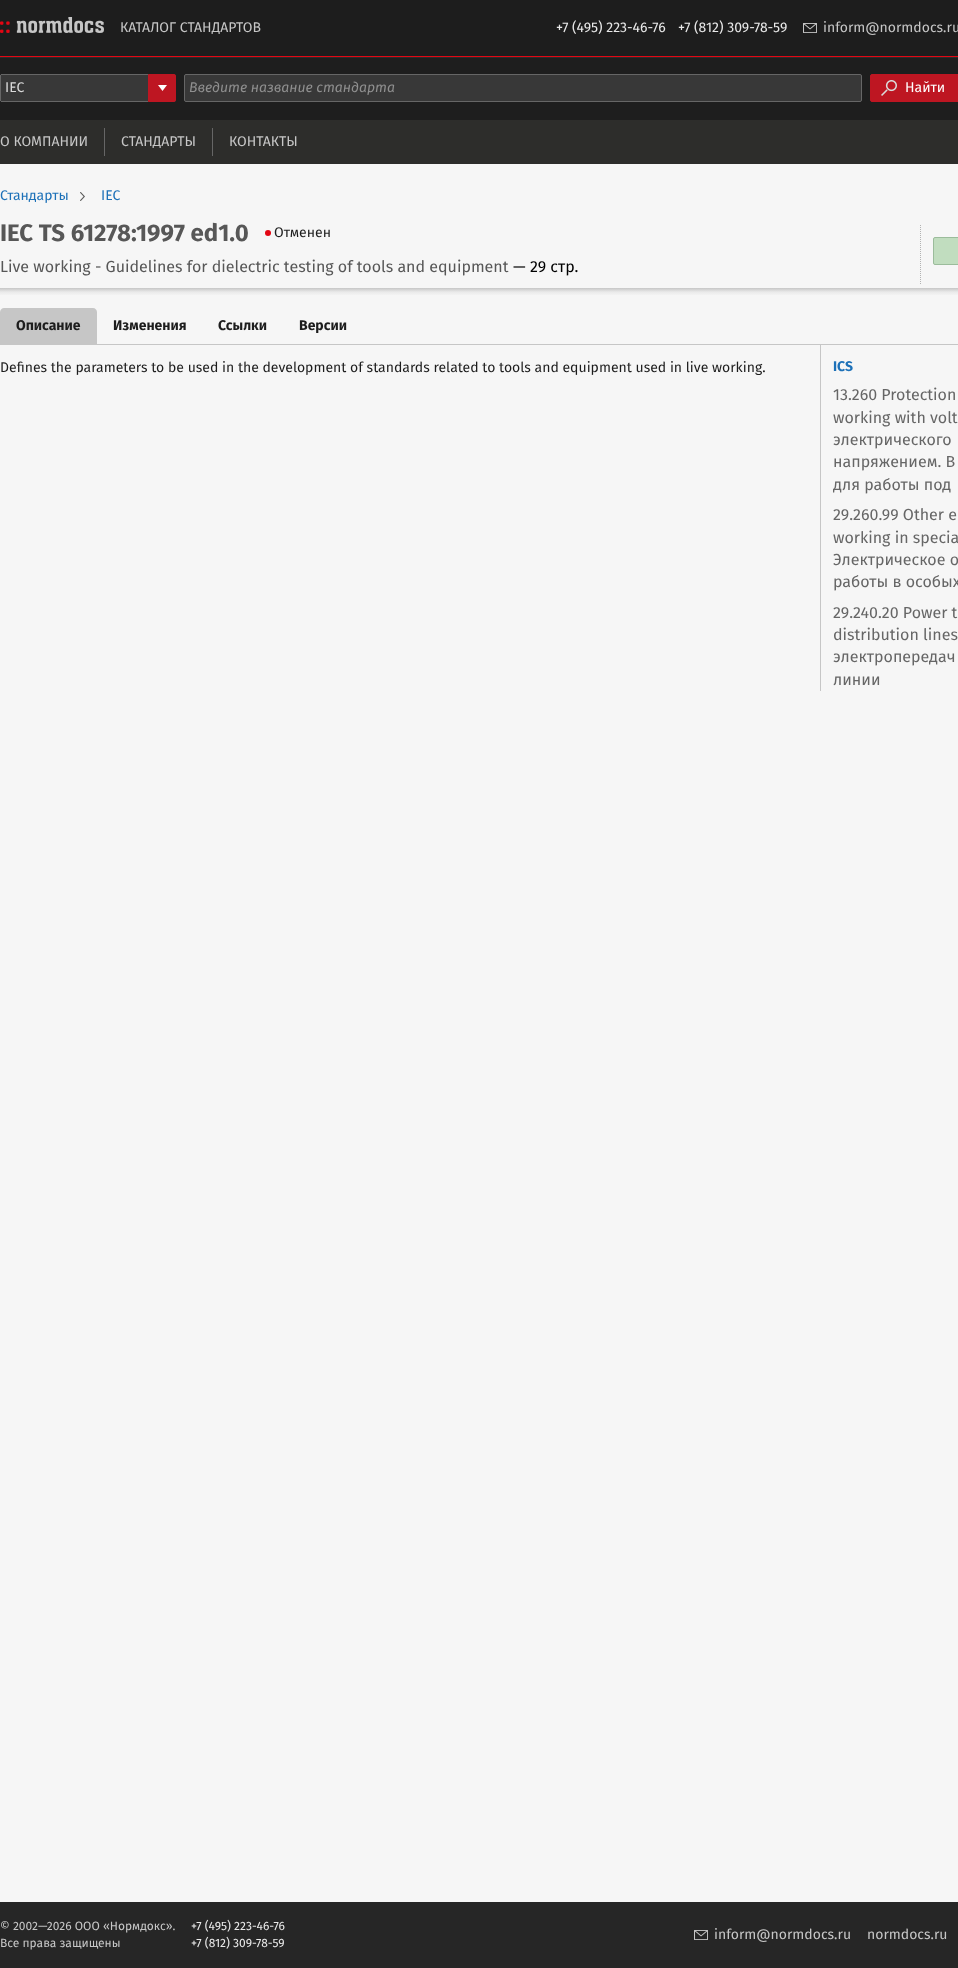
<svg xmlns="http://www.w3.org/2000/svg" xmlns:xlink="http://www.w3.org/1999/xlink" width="958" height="1968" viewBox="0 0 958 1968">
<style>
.cls-1{font:14px Fira Sans;fill:#c6c6c6}
.cls-2{font:14px Fira Sans;fill:#e9e9e9}
.cls-3{font:14px Fira Sans;fill:#dadada}
.cls-4{font:italic 14px Fira Sans;fill:#8f8f8f}
.cls-5{font:14px Fira Sans;fill:#ffffff}
.cls-6{font:14px Fira Sans;fill:#1d71b8}
.cls-7{font:bold 24px Fira Sans;fill:#575757}
.cls-8{font:14px Fira Sans;fill:#1d1d1d}
.cls-9{font:16px Fira Sans;fill:#575757}
.cls-10{font:16px Fira Sans;fill:#000000}
.cls-11{font:bold 14px Fira Sans;fill:#1d1d1d}
.cls-12{font:bold 14px Fira Sans;fill:#1d71b8}
.cls-13{font:16px Fira Sans;fill:#666666}
.cls-14{font:12px Fira Sans;fill:#c6c6c6}
.cls-15{font:12px Fira Sans;fill:#e9e9e9}
</style>
<defs>
<linearGradient id="g1" gradientUnits="userSpaceOnUse" x1="570" y1="288" x2="570" y2="296"><stop offset="0" stop-color="#c6c6c6"/><stop offset="0.5" stop-color="#eaeaea"/><stop offset="1" stop-color="#f6f6f6"/></linearGradient>
</defs>
<rect width="100%" height="100%" fill="#f6f6f6"/>
<rect fill="#1d1d1d" x="0" y="0" width="958" height="56"/>
<rect fill="#e30613" x="0" y="56" width="958" height="1"/>
<image xlink:href="image0.png" x="0" y="17" width="104" height="16"/>
<image xlink:href="image1.png" x="803" y="23" width="14" height="10"/>
<rect fill="#1e1e1e" x="0" y="58" width="958" height="62"/>
<rect fill="#2d2d2b" x="0" y="57" width="958" height="1"/>
<rect fill="#383838" x="0" y="74" width="176" height="28" rx="2"/>
<rect fill="#666666" x="1" y="74" width="147" height="1"/>
<rect fill="#666666" x="1" y="101" width="147" height="1"/>
<rect fill="#666666" x="0" y="75" width="1" height="26"/>
<path fill="#be1622" stroke="#be1622" d="M148.5 74.5H174C175 74.5 175.5 75 175.5 76V100C175.5 101 175 101.5 174 101.5H148.5Z"/>
<path fill="#ffffff" d="M167 85L162.5 91L158 85Z"/>
<rect fill="#383838" stroke="#666666" x="184.5" y="74.5" width="677" height="27" rx="1.5"/>
<rect fill="#be1622" stroke="#be1622" x="870.5" y="74.5" width="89" height="27" rx="1.5"/>
<image xlink:href="image2.png" x="881" y="80" width="16" height="16"/>
<rect fill="#2d2d2b" x="0" y="120" width="958" height="44"/>
<rect fill="#666666" x="104" y="128" width="1" height="28"/>
<rect fill="#666666" x="212" y="128" width="1" height="28"/>
<image xlink:href="image3.png" x="80" y="192" width="5" height="9"/>
<circle fill="#e30613" cx="268" cy="233" r="3"/>
<path fill="none" stroke="#b2b2b2" stroke-dasharray="1 1" d="M920.5 225V284"/>
<rect fill="#c1ddbf" stroke="#9bbc9b" x="933.5" y="237.5" width="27" height="27" rx="1.5"/>
<rect fill="url(#g1)" x="0" y="288" width="958" height="7"/>
<rect fill="#c6c6c6" x="0" y="344" width="958" height="1"/>
<path fill="#c6c6c6" d="M4 308H93C95 308 97 310 97 312V344H0V312C0 310 2 308 4 308Z"/>
<rect fill="#c6c6c6" x="820" y="345" width="1" height="346"/>
<rect fill="#262626" x="0" y="1902" width="958" height="66"/>
<image xlink:href="image4.png" x="694" y="1930" width="14" height="10"/>
<text class="cls-1" x="120" y="32">КАТАЛОГ СТАНДАРТОВ</text>
<text class="cls-2" x="556" y="32">+7 (495) 223-46-76</text>
<text class="cls-2" x="678" y="32">+7 (812) 309-78-59</text>
<text class="cls-1" x="823" y="32">inform@normdocs.ru</text>
<text class="cls-3" x="5" y="92">IEC</text>
<text class="cls-4" x="189" y="92">Введите название стандарта</text>
<text class="cls-5" x="905" y="92">Найти</text>
<text class="cls-1" x="0" y="146">О КОМПАНИИ</text>
<text class="cls-1" x="121" y="146">СТАНДАРТЫ</text>
<text class="cls-1" x="229" y="146">КОНТАКТЫ</text>
<text class="cls-6" x="0" y="200">Стандарты</text>
<text class="cls-6" x="101" y="200">IEC</text>
<text class="cls-7" x="0" y="241">IEC TS 61278:1997 ed1.0</text>
<text class="cls-8" x="274" y="237">Отменен</text>
<text class="cls-9" x="0" y="272">Live working - Guidelines for dielectric testing of tools and equipment</text>
<text class="cls-10" x="513" y="272">— 29 стр.</text>
<text class="cls-11" x="16" y="330">Описание</text>
<text class="cls-11" x="113" y="330">Изменения</text>
<text class="cls-11" x="218" y="330">Ссылки</text>
<text class="cls-11" x="299" y="330">Версии</text>
<text class="cls-8" x="0" y="372">Defines the parameters to be used in the development of standards related to tools and equipment used in live working.</text>
<text class="cls-12" x="833" y="371">ICS</text>
<text class="cls-13"><tspan x="833" y="400">13.260 Protection</tspan><tspan x="833" y="423">working with volt</tspan><tspan x="833" y="445">электрического</tspan><tspan x="833" y="467">напряжением. В</tspan><tspan x="833" y="490">для работы под</tspan><tspan x="833" y="520">29.260.99 Other e</tspan><tspan x="833" y="543">working in specia</tspan><tspan x="833" y="565">Электрическое о</tspan><tspan x="833" y="587">работы в особых</tspan><tspan x="833" y="618">29.240.20 Power t</tspan><tspan x="833" y="640">distribution lines</tspan><tspan x="833" y="662">электропередач</tspan><tspan x="833" y="685">линии</tspan></text>
<text class="cls-14"><tspan x="0" y="1930">© 2002—2026 ООО «Нормдокс».</tspan><tspan x="0" y="1947">Все права защищены</tspan></text>
<text class="cls-15"><tspan x="191" y="1930">+7 (495) 223-46-76</tspan><tspan x="191" y="1947">+7 (812) 309-78-59</tspan></text>
<text class="cls-1" x="714" y="1939">inform@normdocs.ru</text>
<text class="cls-1" x="867" y="1939">normdocs.ru</text>
</svg>
